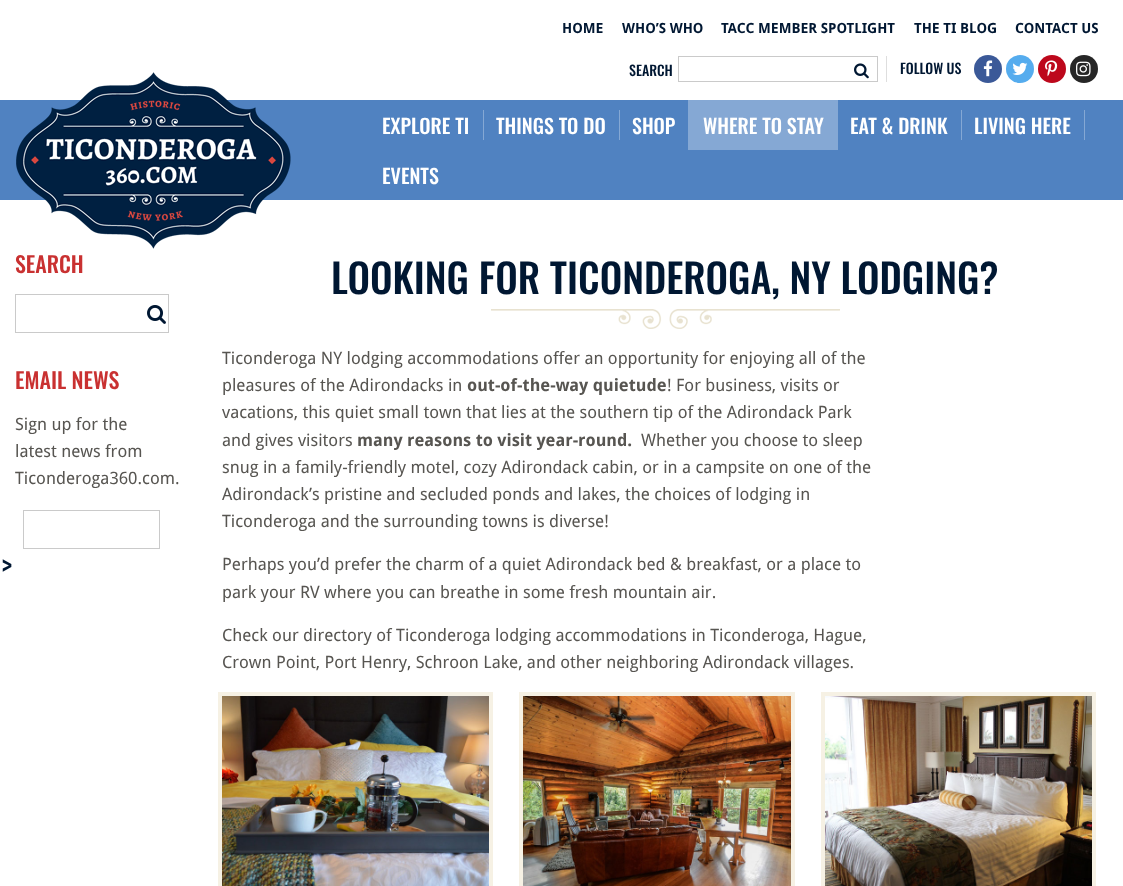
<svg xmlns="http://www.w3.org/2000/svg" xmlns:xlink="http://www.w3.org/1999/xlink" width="1123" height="886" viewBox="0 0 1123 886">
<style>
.cls-1{font:bold 14px Droid Sans;fill:#001732}
.cls-2{font:500 14px Oswald;fill:#001732}
.cls-3{font:500 20px Oswald;fill:#ffffff}
.cls-4{font:500 22px Oswald;fill:#c93131}
.cls-5{font:17px Droid Sans;fill:#575551}
.cls-6{font:30px Oswald;fill:#001732}
.cls-7{font:500 40px Oswald;fill:#001732}
.cls-8{font:bold 17px Droid Sans;fill:#575551}
</style>
<rect width="100%" height="100%" fill="#ffffff"/>
<rect fill="#dedede" x="886" y="56" width="1" height="26"/>
<rect fill="none" stroke="#cacaca" x="678.5" y="56.5" width="199" height="25"/>
<image xlink:href="image0.png" x="854" y="63" width="15" height="16"/>
<circle fill="#3b5998" cx="988" cy="69" r="14"/>
<image xlink:href="image1.png" x="983" y="60" width="10" height="17"/>
<circle fill="#55acee" cx="1020" cy="69" r="14"/>
<image xlink:href="image2.png" x="1012" y="62" width="16" height="13"/>
<circle fill="#bd081c" cx="1052" cy="69" r="14"/>
<image xlink:href="image3.png" x="1045" y="60" width="13" height="17"/>
<circle fill="#262626" cx="1084" cy="69" r="14"/>
<image xlink:href="image4.png" x="1076" y="61" width="15" height="16"/>
<rect fill="#5082c1" x="0" y="100" width="1123" height="100"/>
<image xlink:href="image5.png" x="16" y="72" width="275" height="177"/>
<rect fill="#85a8d4" x="483" y="110" width="1" height="30"/>
<rect fill="#85a8d4" x="619" y="110" width="1" height="30"/>
<rect fill="#85a8d4" x="688" y="100" width="150" height="50"/>
<rect fill="#85a8d4" x="961" y="110" width="1" height="30"/>
<rect fill="#85a8d4" x="1084" y="110" width="1" height="30"/>
<rect fill="none" stroke="#cacaca" x="15.5" y="294.5" width="153" height="38"/>
<image xlink:href="image6.png" x="147" y="305" width="19" height="19"/>
<rect fill="none" stroke="#cacaca" x="23.5" y="510.5" width="136" height="38"/>
<image xlink:href="image7.png" x="491" y="309" width="349" height="20"/>
<rect fill="none" stroke="#f6f1e4" stroke-width="4" x="220" y="694" width="271" height="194"/>
<image xlink:href="image8.png" x="222" y="696" width="267" height="190"/>
<rect fill="none" stroke="#f6f1e4" stroke-width="4" x="521" y="694" width="272" height="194"/>
<image xlink:href="image9.png" x="523" y="696" width="268" height="190"/>
<rect fill="none" stroke="#f6f1e4" stroke-width="4" x="823" y="694" width="271" height="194"/>
<image xlink:href="image10.png" x="825" y="696" width="267" height="190"/>
<text class="cls-1" x="562" y="33">HOME</text>
<text class="cls-1" x="622" y="33">WHO’S WHO</text>
<text class="cls-1" x="721" y="33">TACC MEMBER SPOTLIGHT</text>
<text class="cls-1" x="914" y="33">THE TI BLOG</text>
<text class="cls-1" x="1015" y="33">CONTACT US</text>
<text class="cls-2" x="629" y="76">SEARCH</text>
<text class="cls-2" x="900" y="74">FOLLOW US</text>
<text class="cls-3" x="382" y="134">EXPLORE TI</text>
<text class="cls-3" x="496" y="134">THINGS TO DO</text>
<text class="cls-3" x="632" y="134">SHOP</text>
<text class="cls-3" x="703" y="134">WHERE TO STAY</text>
<text class="cls-3" x="850" y="134">EAT &amp; DRINK</text>
<text class="cls-3" x="974" y="134">LIVING HERE</text>
<text class="cls-3" x="382" y="184">EVENTS</text>
<text class="cls-4" x="15" y="273">SEARCH</text>
<text class="cls-4" x="15" y="389">EMAIL NEWS</text>
<text class="cls-5"><tspan x="15" y="430">Sign up for the</tspan><tspan x="15" y="457">latest news from</tspan><tspan x="15" y="484">Ticonderoga360.com.</tspan></text>
<text class="cls-6" x="1" y="578">&gt;</text>
<text class="cls-7" x="331" y="294">LOOKING FOR TICONDEROGA, NY LODGING?</text>
<text class="cls-5"><tspan x="222" y="364">Ticonderoga NY lodging accommodations offer an opportunity for enjoying all of the</tspan><tspan x="222" y="391">pleasures of the Adirondacks in</tspan></text>
<text class="cls-8" x="467" y="391">out-of-the-way quietude</text>
<text class="cls-5" x="667" y="391">! For business, visits or</text>
<text class="cls-5"><tspan x="222" y="418">vacations, this quiet small town that lies at the southern tip of the Adirondack Park</tspan><tspan x="222" y="446">and gives visitors</tspan></text>
<text class="cls-8" x="357" y="446">many reasons to visit year-round.</text>
<text class="cls-5" x="641" y="446">Whether you choose to sleep</text>
<text class="cls-5"><tspan x="222" y="473">snug in a family-friendly motel, cozy Adirondack cabin, or in a campsite on one of the</tspan><tspan x="222" y="500">Adirondack’s pristine and secluded ponds and lakes, the choices of lodging in</tspan><tspan x="222" y="527">Ticonderoga and the surrounding towns is diverse!</tspan></text>
<text class="cls-5"><tspan x="222" y="570">Perhaps you’d prefer the charm of a quiet Adirondack bed &amp; breakfast, or a place to</tspan><tspan x="222" y="598">park your RV where you can breathe in some fresh mountain air.</tspan></text>
<text class="cls-5"><tspan x="222" y="641">Check our directory of Ticonderoga lodging accommodations in Ticonderoga, Hague,</tspan><tspan x="222" y="668">Crown Point, Port Henry, Schroon Lake, and other neighboring Adirondack villages.</tspan></text>
</svg>
